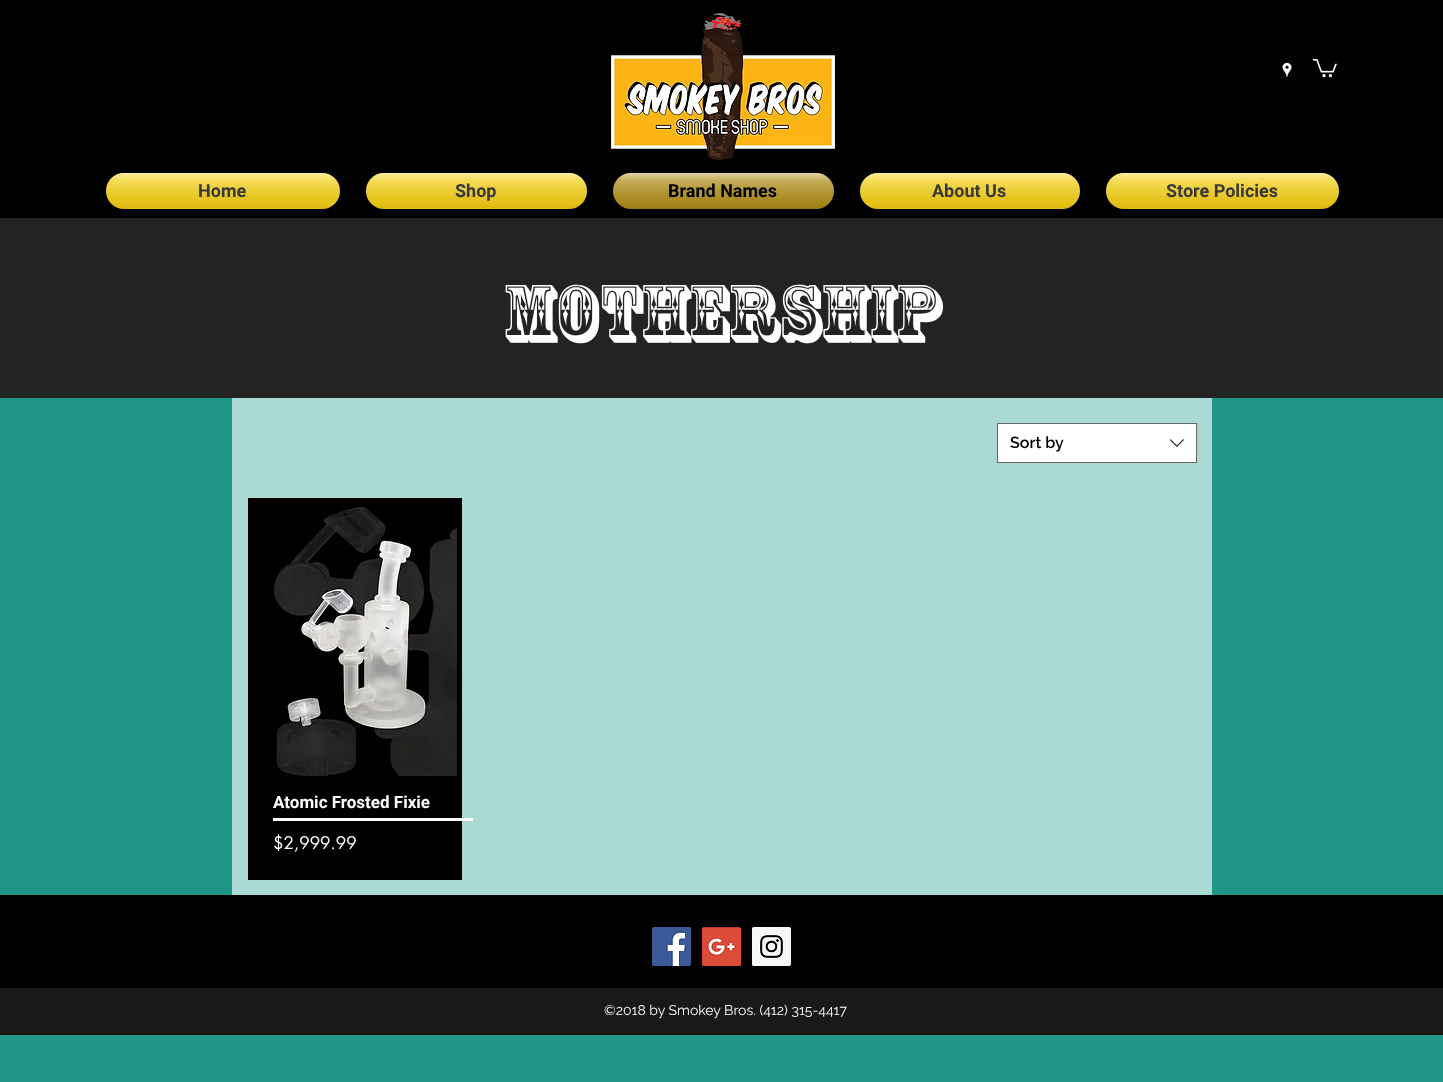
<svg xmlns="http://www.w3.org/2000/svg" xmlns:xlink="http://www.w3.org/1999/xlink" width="1443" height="1082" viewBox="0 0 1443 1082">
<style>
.cls-1{font:bold 18px Roboto;fill:#383838}
.cls-2{font:bold 18px Roboto;fill:#000000}
.cls-3{font:77px 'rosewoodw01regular';fill:#ffffff}
.cls-4{font:600 16px Raleway;fill:#000000}
.cls-5{font:bold 17px Roboto;fill:#ffffff}
.cls-6{font:17px futura;fill:#ffffff}
.cls-7{font:14px Raleway;fill:#ffffff}
</style>
<rect width="100%" height="100%" fill="#209687"/>
<rect fill="#000000" x="0" y="0" width="1443" height="218"/>
<image xlink:href="image0.png" x="611" y="13" width="224" height="147"/>
<image xlink:href="image1.png" x="1282" y="62" width="10" height="15"/>
<image xlink:href="image2.png" x="1313" y="59" width="24" height="19"/>
<rect fill="#ffd500" x="106" y="173" width="234" height="36" rx="18"/>
<image xlink:href="image3.png" x="106" y="173" width="234" height="36"/>
<image xlink:href="image4.png" x="106" y="175" width="234" height="34"/>
<rect fill="#ffd500" x="366" y="173" width="221" height="36" rx="18"/>
<image xlink:href="image5.png" x="366" y="173" width="221" height="36"/>
<image xlink:href="image6.png" x="366" y="175" width="221" height="34"/>
<rect fill="#b38a05" x="613" y="173" width="221" height="36" rx="18"/>
<image xlink:href="image7.png" x="613" y="173" width="221" height="36"/>
<image xlink:href="image8.png" x="613" y="175" width="221" height="34"/>
<rect fill="#ffd500" x="860" y="173" width="220" height="36" rx="18"/>
<image xlink:href="image9.png" x="860" y="173" width="220" height="36"/>
<image xlink:href="image10.png" x="860" y="175" width="220" height="34"/>
<rect fill="#ffd500" x="1106" y="173" width="233" height="36" rx="18"/>
<image xlink:href="image11.png" x="1106" y="173" width="233" height="36"/>
<image xlink:href="image12.png" x="1106" y="175" width="233" height="34"/>
<rect fill="#242323" x="0" y="218" width="1443" height="180"/>
<rect fill="#aad8d2" x="232" y="398" width="980" height="497"/>
<rect fill="#ffffff" stroke="#666666" x="997.5" y="423.5" width="199" height="39"/>
<image xlink:href="image13.png" x="1169" y="439" width="15" height="8"/>
<rect fill="#000000" x="248" y="498" width="214" height="382"/>
<image xlink:href="image14.png" x="274" y="507" width="183" height="269"/>
<rect fill="#ffffff" x="273" y="818" width="200" height="3"/>
<rect fill="#000000" x="0" y="895" width="1443" height="140"/>
<image xlink:href="image15.png" x="652" y="927" width="39" height="39"/>
<image xlink:href="image16.png" x="702" y="927" width="39" height="39"/>
<image xlink:href="image17.png" x="752" y="927" width="39" height="39"/>
<rect fill="#191919" x="0" y="988" width="1443" height="46"/>
<text class="cls-1" x="198" y="197">Home</text>
<text class="cls-1" x="455" y="197">Shop</text>
<text class="cls-2" x="668" y="197">Brand Names</text>
<text class="cls-1" x="932" y="197">About Us</text>
<text class="cls-1" x="1166" y="197">Store Policies</text>
<text class="cls-3" x="503" y="335">mothership</text>
<text class="cls-4" x="1010" y="448">Sort by</text>
<text class="cls-5" x="273" y="808">Atomic Frosted Fixie</text>
<text class="cls-6" x="273" y="849">$2,999.99</text>
<text class="cls-7" x="604" y="1015">©2018 by Smokey Bros. (412) 315-4417</text>
</svg>
